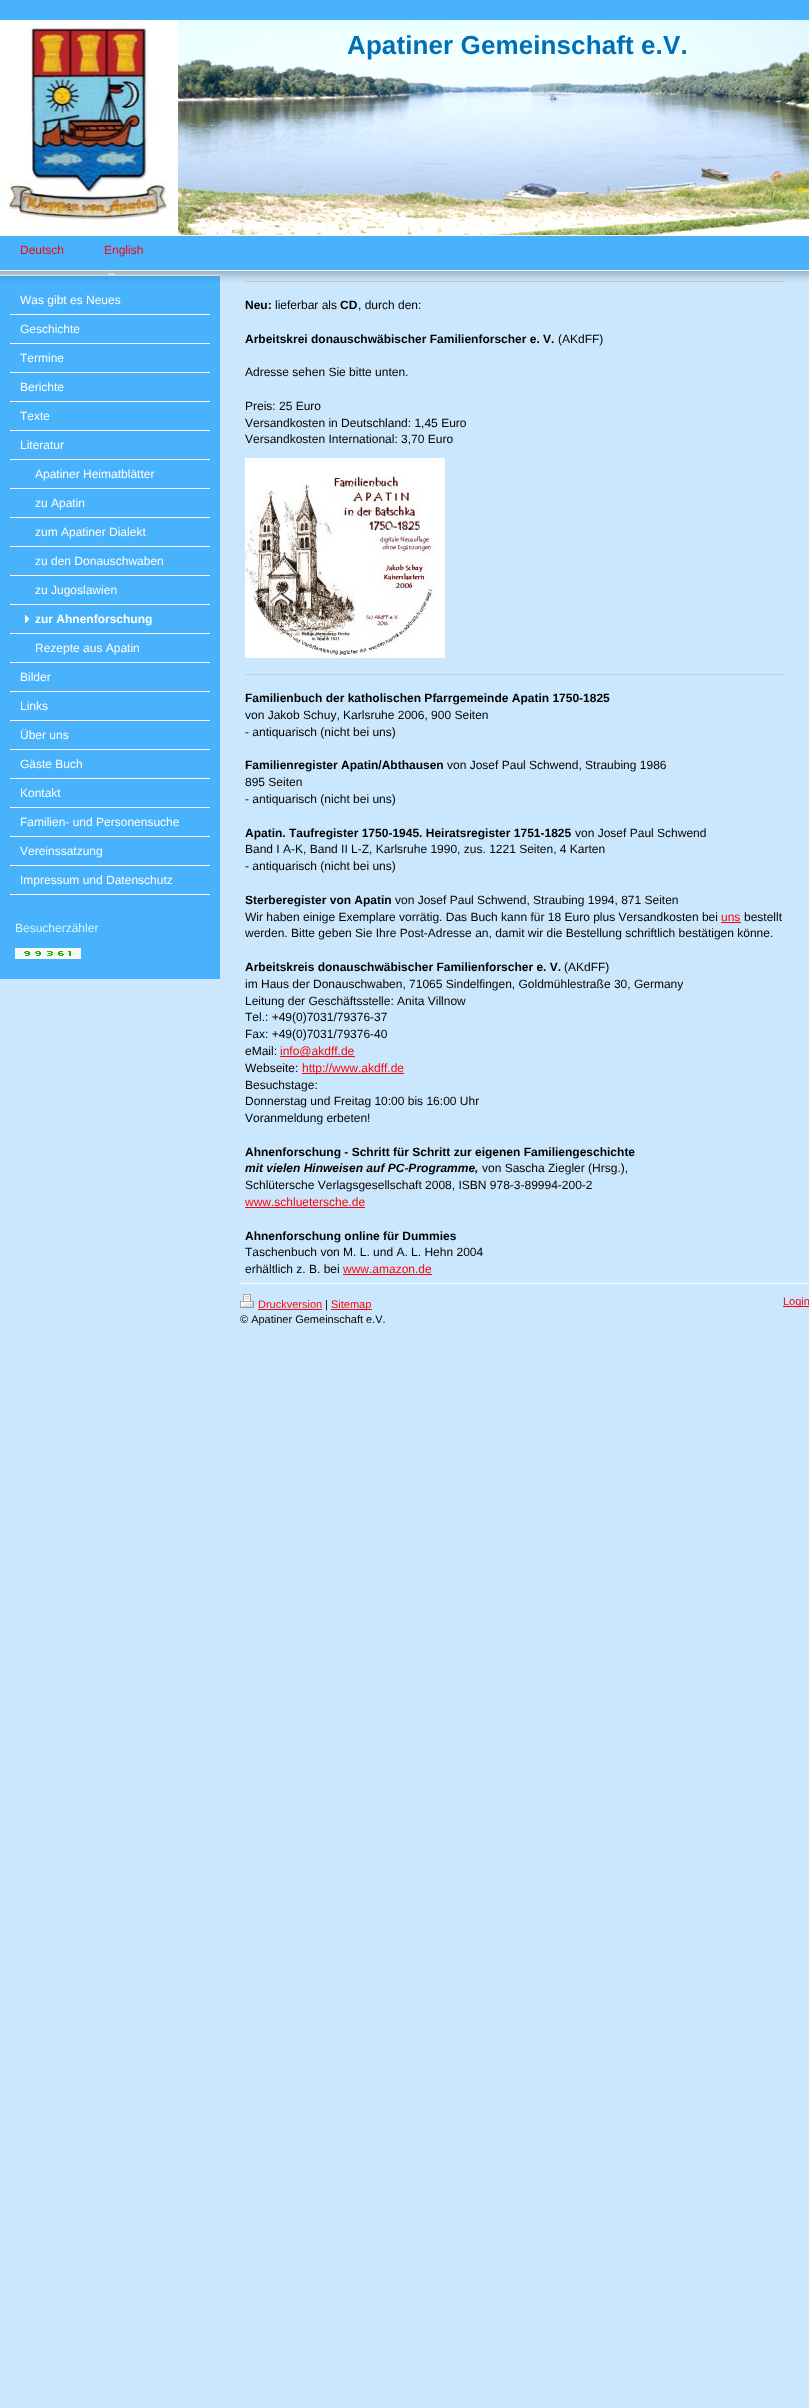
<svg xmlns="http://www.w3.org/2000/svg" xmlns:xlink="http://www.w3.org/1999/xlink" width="809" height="2408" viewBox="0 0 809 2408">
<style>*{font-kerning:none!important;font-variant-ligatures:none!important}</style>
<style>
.cls-1{font:bold 26px Liberation Sans;letter-spacing:0.1px;fill:#006fb7}
.cls-2{font:12px Liberation Sans;fill:#fd040a}
.cls-3{font:12px Liberation Sans;fill:#ffffff}
.cls-4{font:bold 12px Liberation Sans;fill:#ffffff}
.cls-5{font:12px Liberation Sans;fill:#d3f9fa}
.cls-6{font:bold 12px Liberation Sans;fill:#000000}
.cls-7{font:12px Liberation Sans;fill:#000000}
.cls-8{font:italic bold 12px Liberation Sans;fill:#000000}
.cls-9{font:11px Liberation Sans;fill:#fd040a}
.cls-10{font:11px Liberation Sans;fill:#000000}
</style>
<rect width="100%" height="100%" fill="#cbe7fd"/>
<rect fill="#48b2fd" x="0" y="0" width="809" height="270"/>
<rect fill="#ffffff" x="0" y="235" width="809" height="1"/>
<image xlink:href="image0.png" x="0" y="20" width="178" height="215"/>
<image xlink:href="image1.png" x="178" y="20" width="631" height="215"/>
<image xlink:href="image3.png" x="0" y="271" width="220" height="5"/>
<rect fill="#48b2fd" x="0" y="276" width="220" height="703"/>
<rect fill="#cccccc" x="245" y="281" width="540" height="1"/>
<image xlink:href="image2.png" x="0" y="270" width="809" height="12"/>
<rect fill="#ffffff" x="10" y="314" width="200" height="1"/>
<rect fill="#ffffff" x="10" y="343" width="200" height="1"/>
<rect fill="#ffffff" x="10" y="372" width="200" height="1"/>
<rect fill="#ffffff" x="10" y="401" width="200" height="1"/>
<rect fill="#ffffff" x="10" y="430" width="200" height="1"/>
<rect fill="#ffffff" x="10" y="459" width="200" height="1"/>
<rect fill="#ffffff" x="10" y="488" width="200" height="1"/>
<rect fill="#ffffff" x="10" y="517" width="200" height="1"/>
<rect fill="#ffffff" x="10" y="546" width="200" height="1"/>
<rect fill="#ffffff" x="10" y="575" width="200" height="1"/>
<rect fill="#ffffff" x="10" y="604" width="200" height="1"/>
<image xlink:href="image4.png" x="25" y="615" width="4" height="8"/>
<rect fill="#ffffff" x="10" y="633" width="200" height="1"/>
<rect fill="#ffffff" x="10" y="662" width="200" height="1"/>
<rect fill="#ffffff" x="10" y="691" width="200" height="1"/>
<rect fill="#ffffff" x="10" y="720" width="200" height="1"/>
<rect fill="#ffffff" x="10" y="749" width="200" height="1"/>
<rect fill="#ffffff" x="10" y="778" width="200" height="1"/>
<rect fill="#ffffff" x="10" y="807" width="200" height="1"/>
<rect fill="#ffffff" x="10" y="836" width="200" height="1"/>
<rect fill="#ffffff" x="10" y="865" width="200" height="1"/>
<rect fill="#ffffff" x="10" y="894" width="200" height="1"/>
<rect fill="#fafafa" x="15" y="948" width="7" height="11"/>
<image xlink:href="image5.png" x="22" y="948" width="11" height="11"/>
<image xlink:href="image5.png" x="33" y="948" width="11" height="11"/>
<image xlink:href="image6.png" x="44" y="948" width="11" height="11"/>
<image xlink:href="image7.png" x="55" y="948" width="11" height="11"/>
<image xlink:href="image8.png" x="66" y="948" width="7" height="11"/>
<rect fill="#fafafa" x="73" y="948" width="8" height="11"/>
<image xlink:href="image9.png" x="245" y="458" width="200" height="200"/>
<rect fill="#cccccc" x="245" y="674" width="540" height="1"/>
<rect fill="#fd040a" x="721" y="922" width="20" height="1"/>
<rect fill="#fd040a" x="280" y="1056" width="75" height="1"/>
<rect fill="#fd040a" x="302" y="1073" width="102" height="1"/>
<rect fill="#fd040a" x="245" y="1207" width="120" height="1"/>
<rect fill="#fd040a" x="343" y="1274" width="89" height="1"/>
<rect fill="#ffffff" x="240" y="1283" width="569" height="1"/>
<image xlink:href="image10.png" x="240" y="1294" width="14" height="14"/>
<rect fill="#fd040a" x="258" y="1309" width="64" height="1"/>
<rect fill="#fd040a" x="331" y="1309" width="41" height="1"/>
<rect fill="#fd040a" x="783" y="1306" width="26" height="1"/>
<text class="cls-1" x="347" y="54">Apatiner Gemeinschaft e.V.</text>
<text class="cls-2" x="20" y="254">Deutsch</text>
<text class="cls-2" x="104" y="254">English</text>
<text class="cls-3" x="20" y="304">Was gibt es Neues</text>
<text class="cls-3" x="20" y="333">Geschichte</text>
<text class="cls-3" x="20" y="362">Termine</text>
<text class="cls-3" x="20" y="391">Berichte</text>
<text class="cls-3" x="20" y="420">Texte</text>
<text class="cls-3" x="20" y="449">Literatur</text>
<text class="cls-3" x="35" y="478">Apatiner Heimatblätter</text>
<text class="cls-3" x="35" y="507">zu Apatin</text>
<text class="cls-3" x="35" y="536">zum Apatiner Dialekt</text>
<text class="cls-3" x="35" y="565">zu den Donauschwaben</text>
<text class="cls-3" x="35" y="594">zu Jugoslawien</text>
<text class="cls-4" x="35" y="623">zur Ahnenforschung</text>
<text class="cls-3" x="35" y="652">Rezepte aus Apatin</text>
<text class="cls-3" x="20" y="681">Bilder</text>
<text class="cls-3" x="20" y="710">Links</text>
<text class="cls-3" x="20" y="739">Über uns</text>
<text class="cls-3" x="20" y="768">Gäste Buch</text>
<text class="cls-3" x="20" y="797">Kontakt</text>
<text class="cls-3" x="20" y="826">Familien- und Personensuche</text>
<text class="cls-3" x="20" y="855">Vereinssatzung</text>
<text class="cls-3" x="20" y="884">Impressum und Datenschutz</text>
<text class="cls-5" x="15" y="932">Besucherzähler</text>
<text class="cls-6" x="245" y="309">Neu:</text>
<text class="cls-7" x="275" y="309">lieferbar als</text>
<text class="cls-6" x="340" y="309">CD</text>
<text class="cls-7" x="358" y="309">, durch den:</text>
<text class="cls-6" x="245" y="343">Arbeitskrei donauschwäbischer Familienforscher e. V.</text>
<text class="cls-7" x="558" y="343">(AKdFF)</text>
<text class="cls-7" x="245" y="376">Adresse sehen Sie bitte unten.</text>
<text class="cls-7"><tspan x="245" y="410">Preis: 25 Euro</tspan><tspan x="245" y="427">Versandkosten in Deutschland: 1,45 Euro</tspan><tspan x="245" y="443">Versandkosten International: 3,70 Euro</tspan></text>
<text class="cls-6" x="245" y="702">Familienbuch der katholischen Pfarrgemeinde Apatin 1750-1825</text>
<text class="cls-7"><tspan x="245" y="719">von Jakob Schuy, Karlsruhe 2006, 900 Seiten</tspan><tspan x="245" y="736">- antiquarisch (nicht bei uns)</tspan></text>
<text class="cls-6" x="245" y="769">Familienregister Apatin/Abthausen</text>
<text class="cls-7" x="447" y="769">von Josef Paul Schwend, Straubing 1986</text>
<text class="cls-7"><tspan x="245" y="786">895 Seiten</tspan><tspan x="245" y="803">- antiquarisch (nicht bei uns)</tspan></text>
<text class="cls-6" x="245" y="837">Apatin. Taufregister 1750-1945. Heiratsregister 1751-1825</text>
<text class="cls-7" x="575" y="837">von Josef Paul Schwend</text>
<text class="cls-7"><tspan x="245" y="853">Band I A-K, Band II L-Z, Karlsruhe 1990, zus. 1221 Seiten, 4 Karten</tspan><tspan x="245" y="870">- antiquarisch (nicht bei uns)</tspan></text>
<text class="cls-6" x="245" y="904">Sterberegister von Apatin</text>
<text class="cls-7" x="395" y="904">von Josef Paul Schwend, Straubing 1994, 871 Seiten</text>
<text class="cls-7" x="245" y="921">Wir haben einige Exemplare vorrätig. Das Buch kann für 18 Euro plus Versandkosten bei</text>
<text class="cls-2" x="721" y="921">uns</text>
<text class="cls-7" x="744" y="921">bestellt</text>
<text class="cls-7" x="245" y="937">werden. Bitte geben Sie Ihre Post-Adresse an, damit wir die Bestellung schriftlich bestätigen könne.</text>
<text class="cls-6" x="245" y="971">Arbeitskreis donauschwäbischer Familienforscher e. V.</text>
<text class="cls-7" x="564" y="971">(AKdFF)</text>
<text class="cls-7"><tspan x="245" y="988">im Haus der Donauschwaben, 71065 Sindelfingen, Goldmühlestraße 30, Germany</tspan><tspan x="245" y="1005">Leitung der Geschäftsstelle: Anita Villnow</tspan><tspan x="245" y="1021">Tel.: +49(0)7031/79376-37</tspan><tspan x="245" y="1038">Fax: +49(0)7031/79376-40</tspan><tspan x="245" y="1055">eMail:</tspan></text>
<text class="cls-2" x="280" y="1055">info@akdff.de</text>
<text class="cls-7" x="245" y="1072">Webseite:</text>
<text class="cls-2" x="302" y="1072">http://www.akdff.de</text>
<text class="cls-7"><tspan x="245" y="1089">Besuchstage:</tspan><tspan x="245" y="1105">Donnerstag und Freitag 10:00 bis 16:00 Uhr</tspan><tspan x="245" y="1122">Voranmeldung erbeten!</tspan></text>
<text class="cls-6" x="245" y="1156">Ahnenforschung - Schritt für Schritt zur eigenen Familiengeschichte</text>
<text class="cls-8" x="245" y="1172">mit vielen Hinweisen auf PC-Programme,</text>
<text class="cls-7" x="482" y="1172">von Sascha Ziegler (Hrsg.),</text>
<text class="cls-7" x="245" y="1189">Schlütersche Verlagsgesellschaft 2008, ISBN 978-3-89994-200-2</text>
<text class="cls-2" x="245" y="1206">www.schluetersche.de</text>
<text class="cls-6" x="245" y="1240">Ahnenforschung online für Dummies</text>
<text class="cls-7"><tspan x="245" y="1256">Taschenbuch von M. L. und A. L. Hehn 2004</tspan><tspan x="245" y="1273">erhältlich z. B. bei</tspan></text>
<text class="cls-2" x="343" y="1273">www.amazon.de</text>
<text class="cls-9" x="258" y="1308">Druckversion</text>
<text class="cls-10" x="325" y="1308">|</text>
<text class="cls-9" x="331" y="1308">Sitemap</text>
<text class="cls-10" x="240" y="1323">© Apatiner Gemeinschaft e.V.</text>
<text class="cls-9" x="783" y="1305">Login</text>
</svg>
